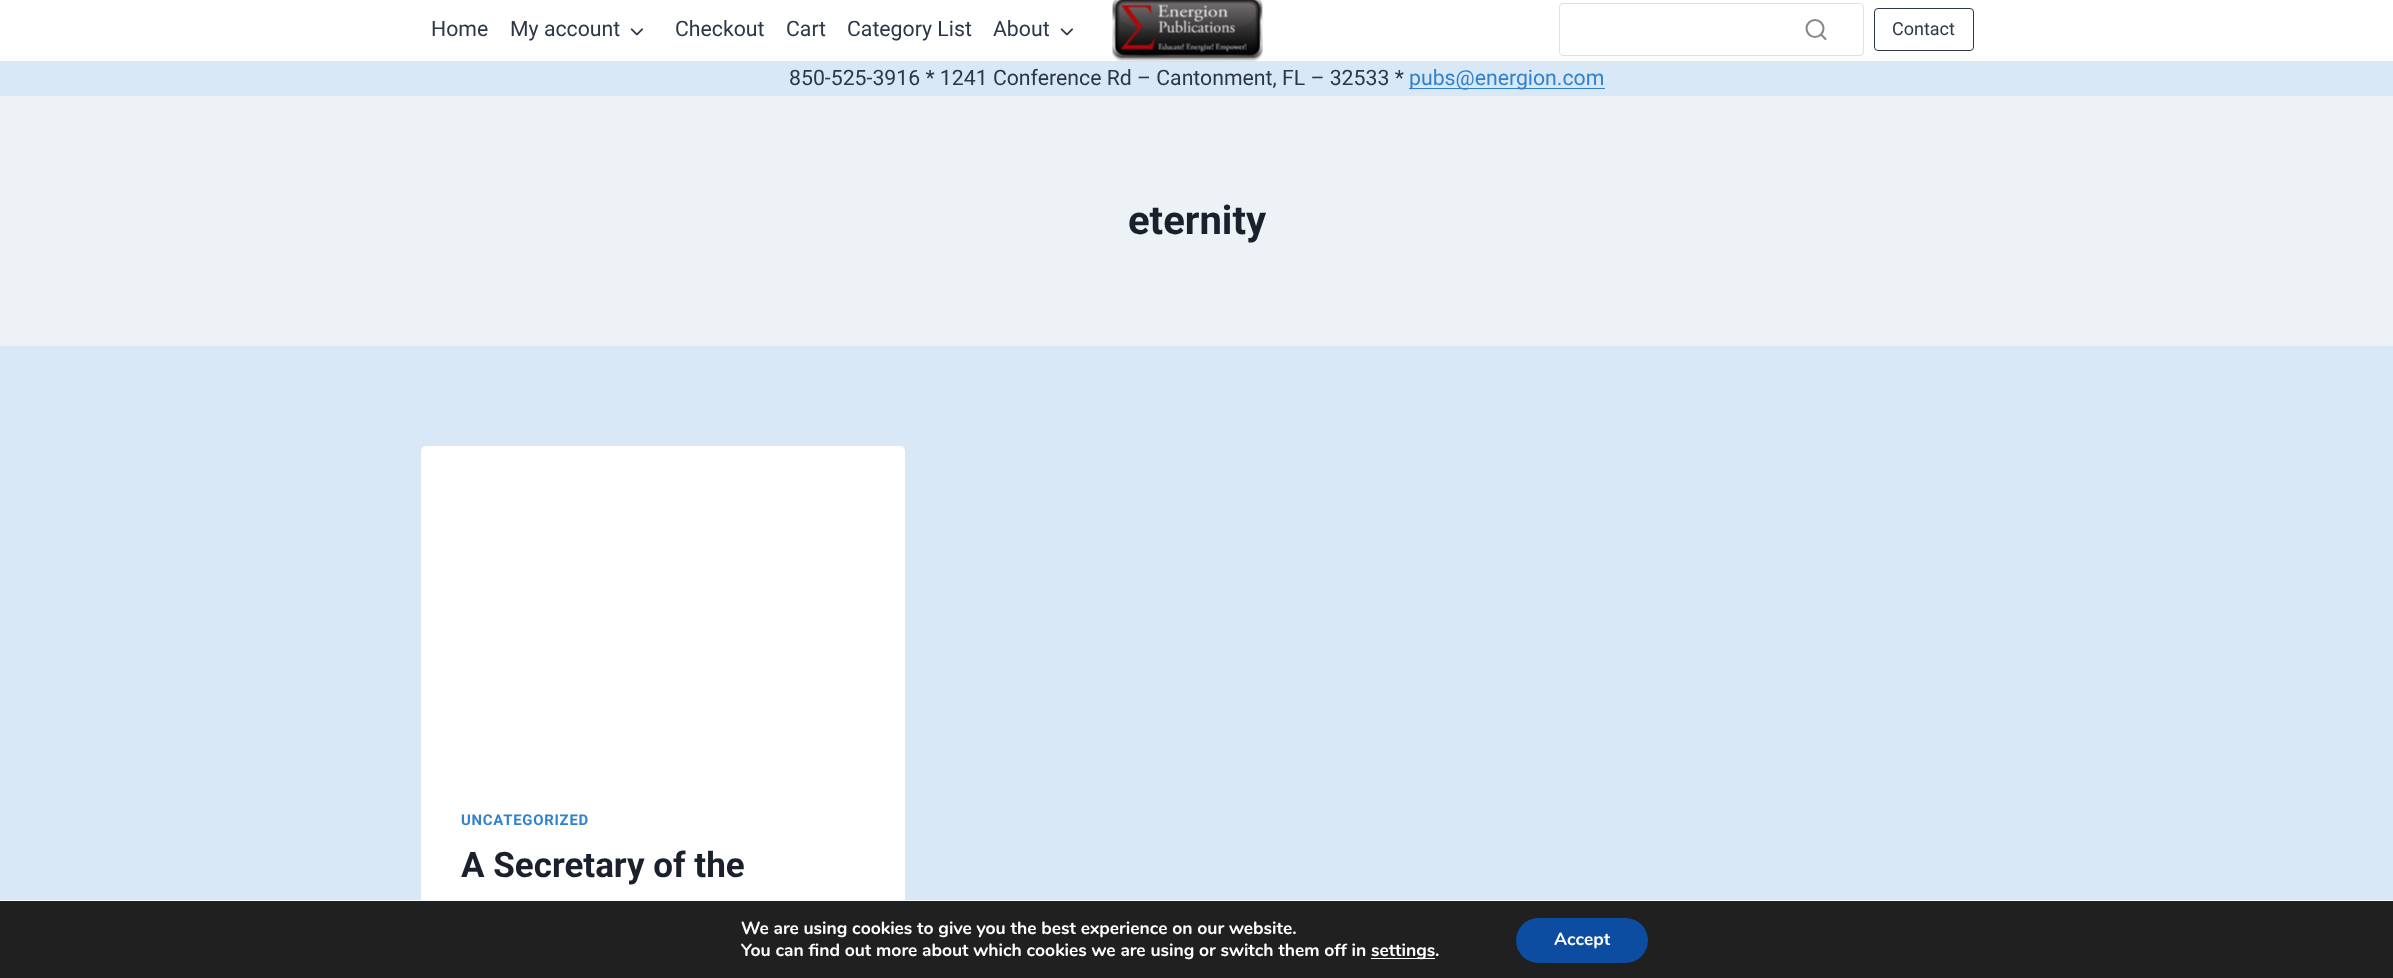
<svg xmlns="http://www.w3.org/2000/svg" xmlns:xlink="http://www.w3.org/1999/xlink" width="2393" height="978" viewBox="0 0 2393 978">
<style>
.cls-1{font:21.25px Roboto;fill:#2d3748}
.cls-2{font:18px Roboto;fill:#2d3748}
.cls-3{font:21.25px Roboto;fill:#3182ce}
.cls-4{font:bold 40px Roboto;fill:#1a202c}
.cls-5{font:bold 14.9px Roboto;letter-spacing:0.75px;fill:#3182ce}
.cls-6{font:bold 35px Roboto;fill:#1a202c}
.cls-7{font:bold 17.5px Nunito;fill:#ffffff}
</style>
<rect width="100%" height="100%" fill="#d9e8f6"/>
<rect fill="#ffffff" x="0" y="0" width="2393" height="61"/>
<image xlink:href="image0.png" x="630" y="28" width="13" height="8"/>
<image xlink:href="image0.png" x="1060" y="28" width="13" height="8"/>
<image xlink:href="image1.png" x="1112" y="0" width="151" height="62"/>
<rect fill="none" stroke="#dee2e6" x="1559.5" y="3.5" width="304" height="52" rx="3.5"/>
<circle fill="none" stroke="#888888" stroke-width="2.1" cx="1815" cy="28.5" r="8.5"/>
<path fill="none" stroke="#888888" stroke-width="2.1" stroke-linecap="round" stroke-linejoin="round" d="M1825.5 39L1821 34.5"/>
<rect fill="none" stroke="#2d3748" x="1874.5" y="8.5" width="99" height="42" rx="3.5"/>
<rect fill="#3182ce" x="1409" y="88" width="196" height="1"/>
<rect fill="#edf2f7" x="0" y="96" width="2393" height="250"/>
<rect fill="#ffffff" x="421" y="446" width="484" height="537" rx="5"/>
<rect fill="#202020" x="0" y="901" width="2393" height="77"/>
<rect fill="#ffffff" x="0" y="900" width="2393" height="1"/>
<rect fill="#ffffff" x="1371" y="958" width="64" height="1"/>
<rect fill="#0c4da2" x="1516" y="918" width="132" height="45" rx="22.5"/>
<text class="cls-1" x="431" y="36">Home</text>
<text class="cls-1" x="510" y="36">My account</text>
<text class="cls-1" x="675" y="36">Checkout</text>
<text class="cls-1" x="786" y="36">Cart</text>
<text class="cls-1" x="847" y="36">Category List</text>
<text class="cls-1" x="993" y="36">About</text>
<text class="cls-2" x="1892" y="35">Contact</text>
<text class="cls-1" x="789" y="85">850-525-3916 * 1241 Conference Rd – Cantonment, FL – 32533 *</text>
<text class="cls-3" x="1409" y="85">pubs@energion.com</text>
<text class="cls-4" x="1128" y="234">eternity</text>
<text class="cls-5" x="461" y="825">UNCATEGORIZED</text>
<text class="cls-6" x="461" y="877">A Secretary of the</text>
<text class="cls-7"><tspan x="741" y="934">We are using cookies to give you the best experience on our website.</tspan><tspan x="741" y="956">You can find out more about which cookies we are using or switch them off in</tspan></text>
<text class="cls-7" x="1371" y="956">settings.</text>
<text class="cls-7" x="1554" y="945">Accept</text>
</svg>
